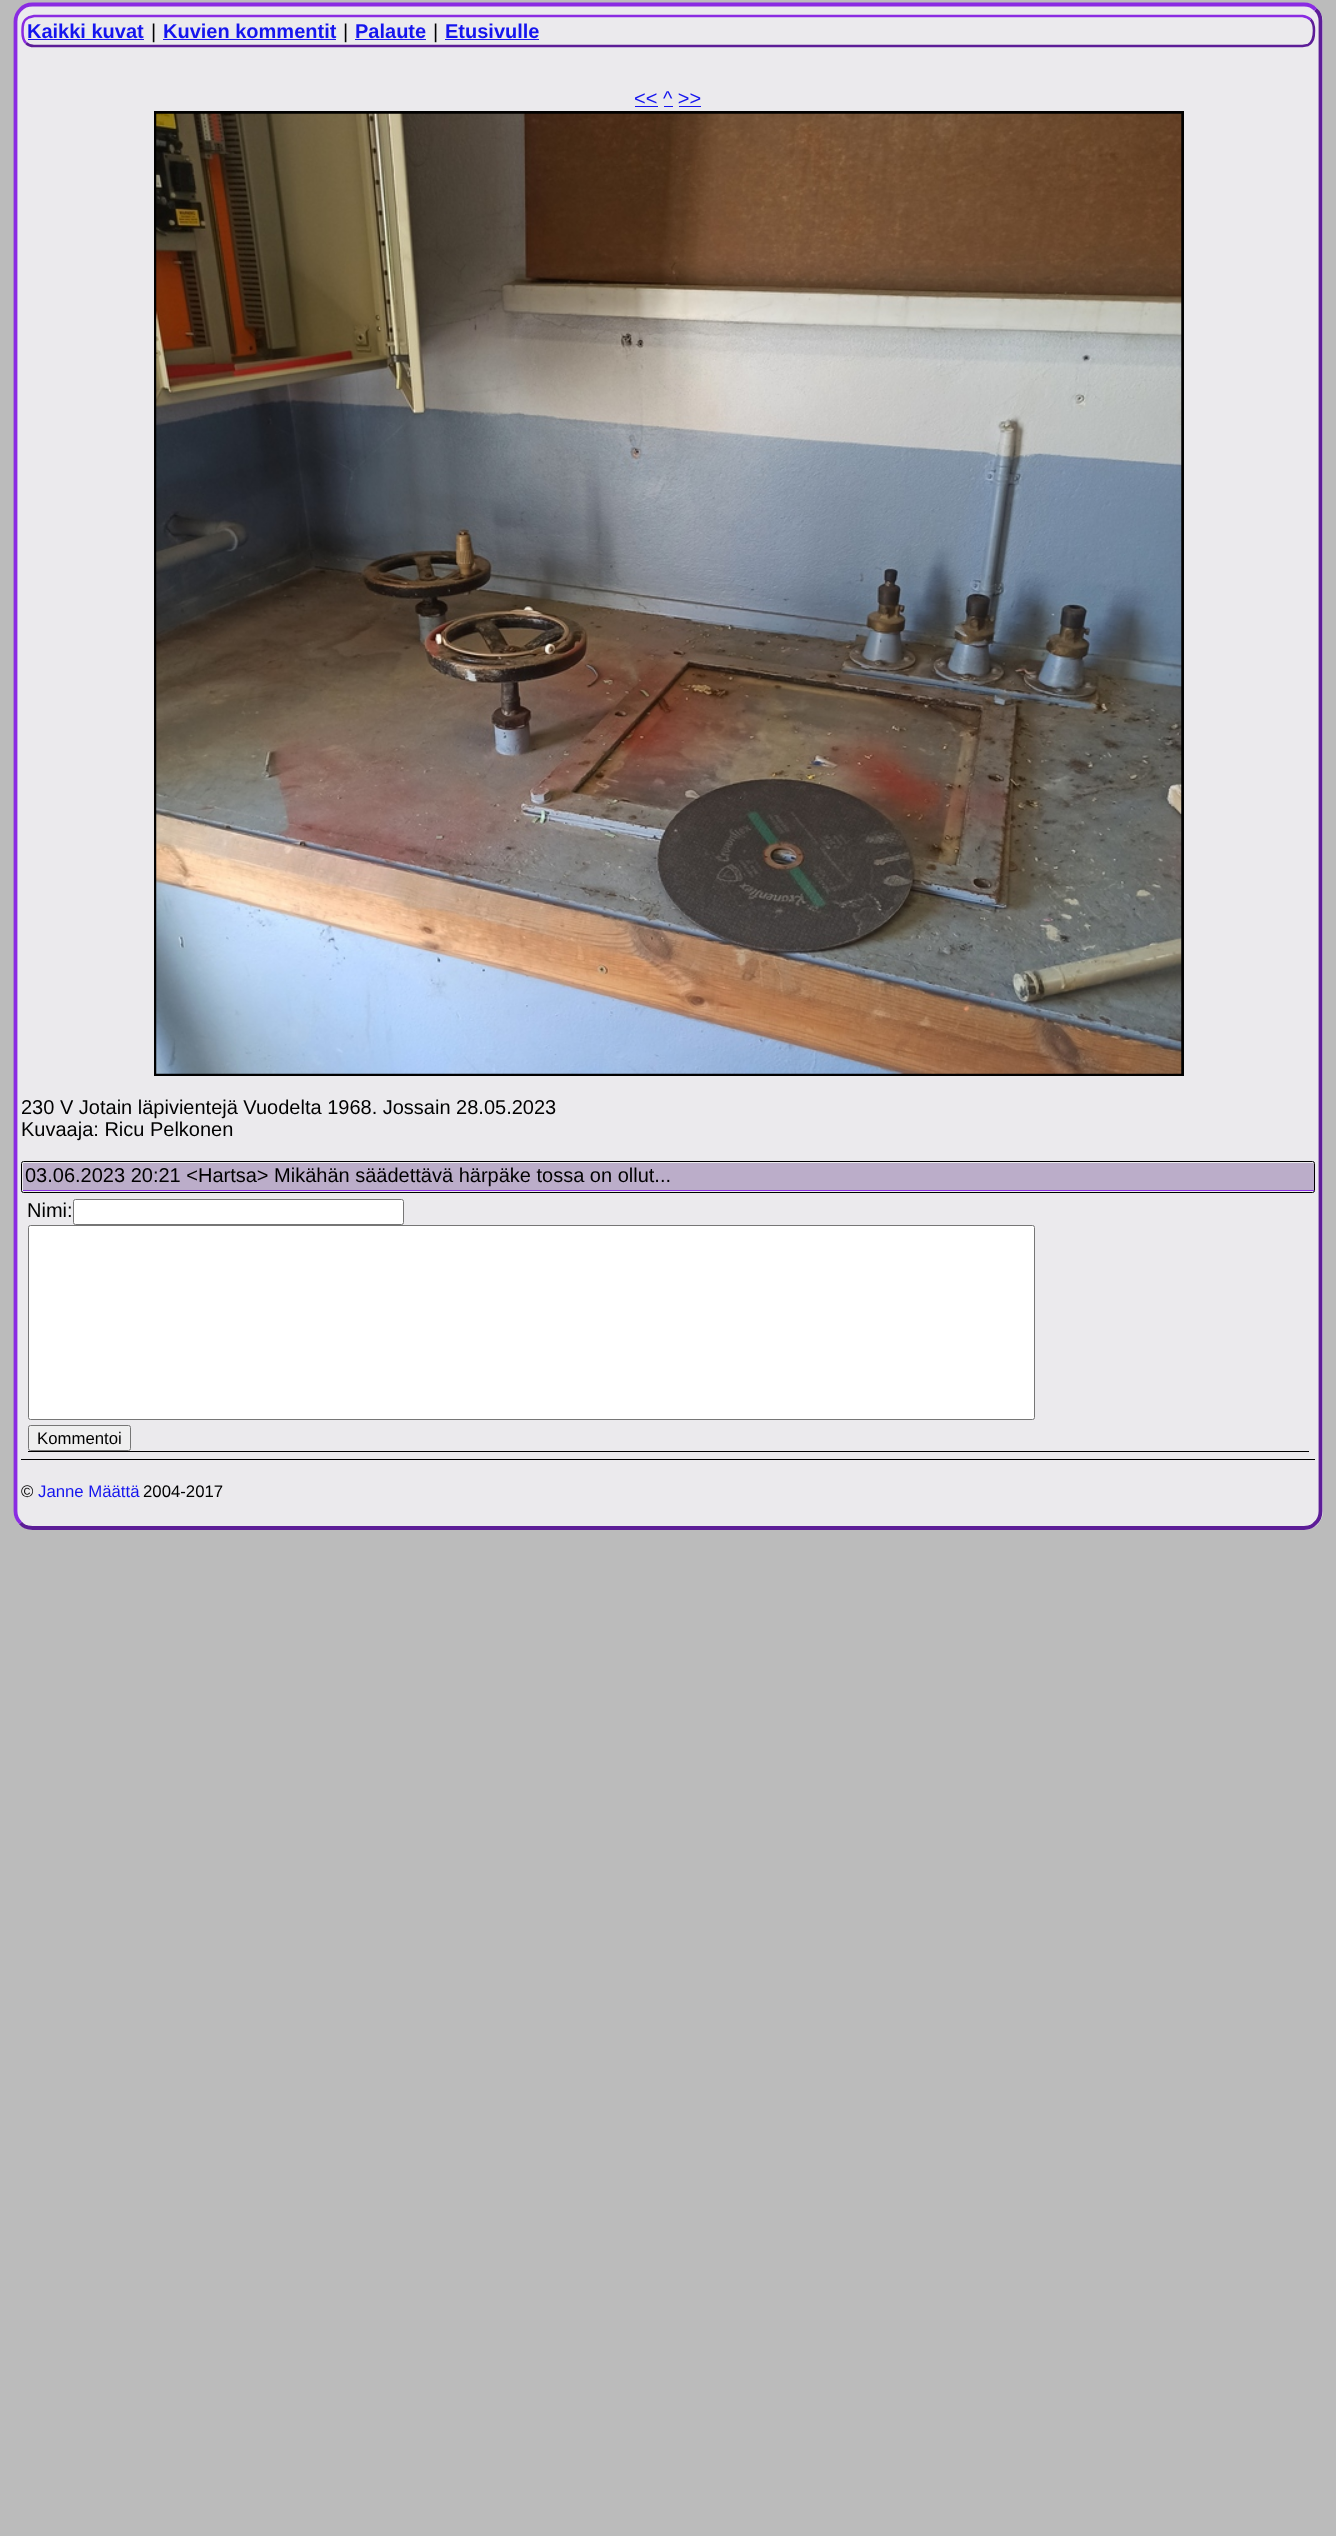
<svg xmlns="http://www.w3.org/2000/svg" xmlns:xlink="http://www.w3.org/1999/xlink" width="1336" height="2536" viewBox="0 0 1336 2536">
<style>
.cls-1{font:bold 20px Liberation Sans;fill:#1515ee}
.cls-2{font:20px Liberation Sans;fill:#000000}
.cls-3{font:20px Liberation Sans;fill:#1515ee}
.cls-4{font:16.75px Liberation Sans;fill:#000000}
.cls-5{font:16.75px Liberation Sans;fill:#1515ee}
</style>
<rect width="100%" height="100%" fill="#bbbbbb"/>
<rect fill="#ebeaed" x="14" y="3" width="1309" height="1527" rx="19"/>
<path fill="none" stroke="#5c1d97" stroke-width="3.8" d="M1315.5 9.5C1319 12.5 1320.5 17 1320.5 21V1511C1320.5 1515.5 1319 1520 1315.5 1523C1312.5 1526.5 1308 1528 1304 1528H32.5C28 1528 23.5 1526.5 20.5 1523"/>
<path fill="none" stroke="#8a2be2" stroke-width="3.8" d="M20.5 1523C17.5 1520 15.5 1515.5 15.5 1511V21.5C15.5 17 17.5 12.5 20.5 9.5C23.5 6 28 4.5 32.5 4.5H1304C1308 4.5 1312.5 6 1315.5 9.5"/>
<path fill="none" stroke="#5c1d97" stroke-width="2.5" d="M1310.5 19.5C1313.5 22.5 1314 26.5 1314 30.5C1314 36.5 1313.5 42 1308 45L1302.5 46H34C31 46 28 45 26 43"/>
<path fill="none" stroke="#8a2be2" stroke-width="2.5" d="M26 43C22.5 40 22.5 36 22.5 32C22.5 26 22.5 20.5 28.5 17.5L34 16H1302.5C1305.5 16.5 1308.5 17.5 1310.5 19.5"/>
<rect fill="#1515ee" x="28" y="39" width="116" height="1"/>
<rect fill="#1515ee" x="163" y="39" width="173" height="1"/>
<rect fill="#1515ee" x="355" y="39" width="71" height="1"/>
<rect fill="#1515ee" x="445" y="39" width="94" height="1"/>
<rect fill="#1515ee" x="635" y="106" width="23" height="1"/>
<rect fill="#1515ee" x="664" y="106" width="9" height="1"/>
<rect fill="#1515ee" x="679" y="106" width="22" height="1"/>
<rect fill="none" stroke="#000000" stroke-width="3" x="155.5" y="112.5" width="1027" height="962"/>
<image xlink:href="image0.png" x="156" y="113" width="1026" height="961"/>
<rect fill="none" stroke="#000000" x="21.5" y="1161.5" width="1293" height="31" rx="2"/>
<rect fill="#bbadc9" x="23" y="1163" width="1291" height="27"/>
<rect fill="#8a2be2" x="23" y="1190" width="1291" height="1"/>
<rect fill="#ffffff" stroke="#767676" x="73.5" y="1199.5" width="330" height="25" rx="2"/>
<rect fill="#ffffff" stroke="#767676" x="28.5" y="1225.5" width="1006" height="194" rx="2"/>
<rect fill="#efefef" stroke="#767676" x="28.5" y="1425.5" width="102" height="25" rx="2"/>
<rect fill="#000000" x="28" y="1451" width="1281" height="1"/>
<rect fill="#000000" x="21" y="1459" width="1294" height="1"/>
<text class="cls-1" x="27" y="38">Kaikki kuvat</text>
<text class="cls-2" x="151" y="38">|</text>
<text class="cls-1" x="163" y="38">Kuvien kommentit</text>
<text class="cls-2" x="343" y="38">|</text>
<text class="cls-1" x="355" y="38">Palaute</text>
<text class="cls-2" x="433" y="38">|</text>
<text class="cls-1" x="445" y="38">Etusivulle</text>
<text class="cls-3" x="634" y="105">&lt;&lt; ^ &gt;&gt;</text>
<text class="cls-2"><tspan x="21" y="1114">230 V Jotain läpivientejä Vuodelta 1968. Jossain 28.05.2023</tspan><tspan x="21" y="1136">Kuvaaja: Ricu Pelkonen</tspan></text>
<text class="cls-2" x="25" y="1182">03.06.2023 20:21 &lt;Hartsa&gt; Mikähän säädettävä härpäke tossa on ollut...</text>
<text class="cls-2" x="27" y="1217">Nimi:</text>
<text class="cls-4" x="37" y="1444">Kommentoi</text>
<text class="cls-4" x="21" y="1497">©</text>
<text class="cls-5" x="38" y="1497">Janne Määttä</text>
<text class="cls-4" x="143" y="1497">2004-2017</text>
</svg>
